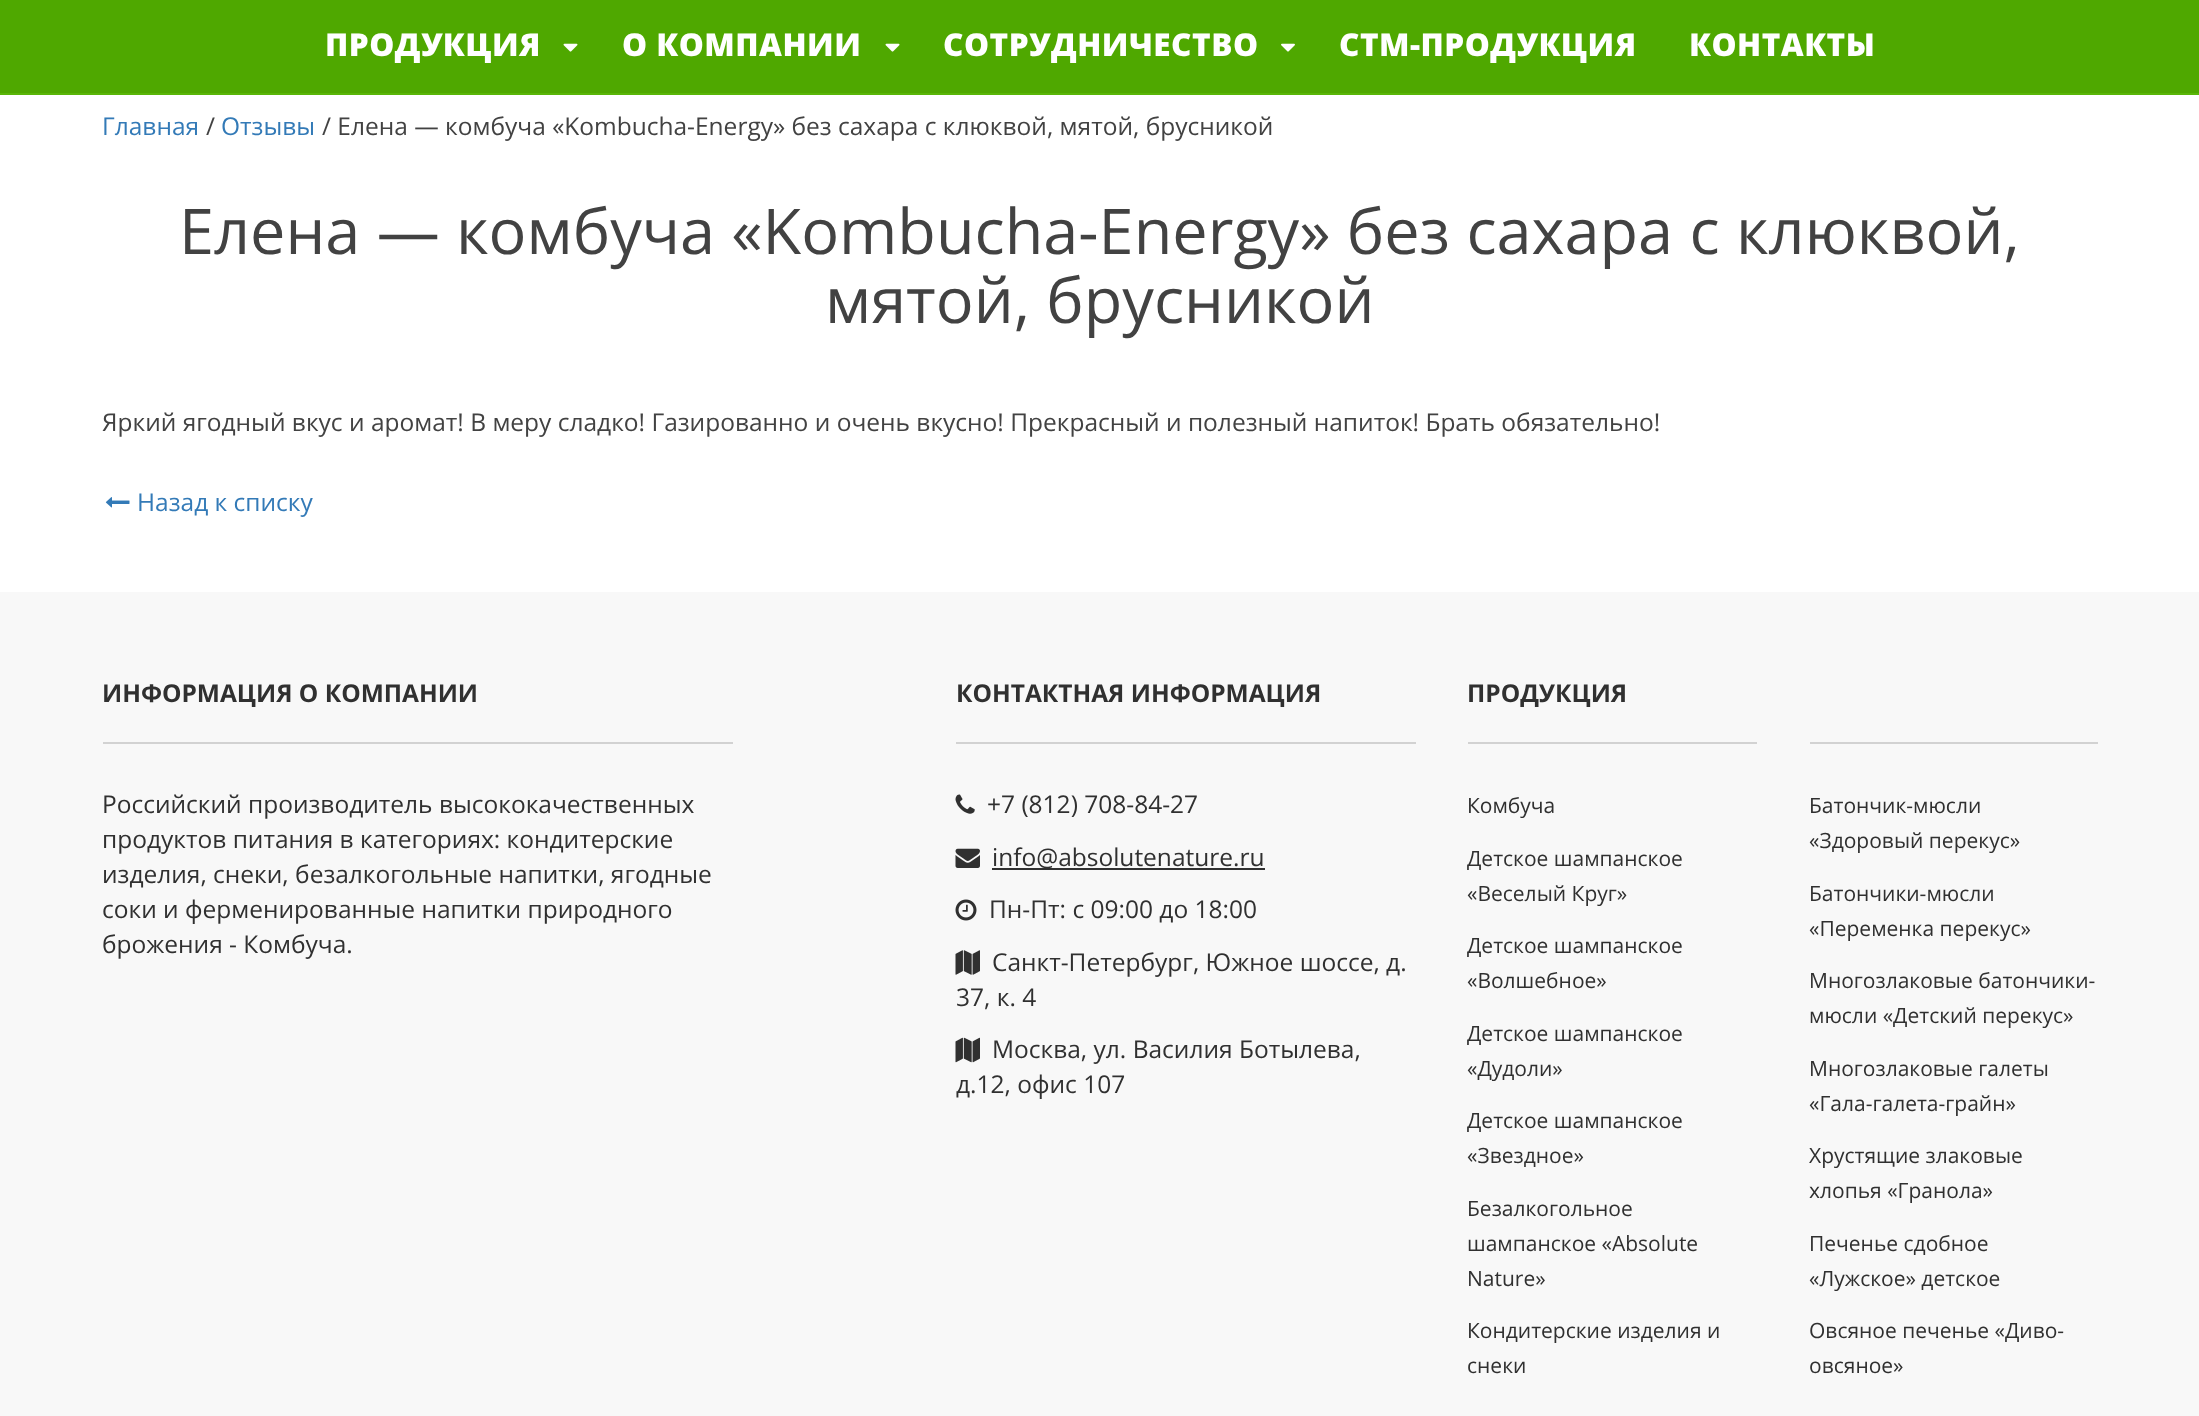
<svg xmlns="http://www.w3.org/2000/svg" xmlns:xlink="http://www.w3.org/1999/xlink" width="2199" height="1416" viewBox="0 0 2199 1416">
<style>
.cls-1{font:800 31.5px Open Sans;letter-spacing:0.5px;fill:#ffffff}
.cls-2{font:24.5px Open Sans;fill:#337ab7}
.cls-3{font:24.5px Open Sans;fill:#424242}
.cls-4{font:63px Open Sans;fill:#424242}
.cls-5{font:bold 24.5px Open Sans;fill:#303030}
.cls-6{font:24.5px Open Sans;fill:#303030}
.cls-7{font:21px Open Sans;fill:#303030}
</style>
<rect width="100%" height="100%" fill="#ffffff"/>
<rect fill="#5ab608" x="0" y="93" width="2199" height="2"/>
<rect fill="#4fa800" x="0" y="0" width="2199" height="93"/>
<image xlink:href="image0.png" x="563" y="43" width="15" height="9"/>
<image xlink:href="image0.png" x="885" y="43" width="15" height="9"/>
<image xlink:href="image1.png" x="1281" y="43" width="14" height="9"/>
<image xlink:href="image2.png" x="105" y="497" width="25" height="11"/>
<rect fill="#f8f8f8" x="0" y="592" width="2199" height="824"/>
<rect fill="#d2d2d2" x="103" y="742" width="630" height="2"/>
<rect fill="#d2d2d2" x="956" y="742" width="460" height="2"/>
<image xlink:href="image3.png" x="955" y="794" width="20" height="20"/>
<image xlink:href="image4.png" x="955" y="848" width="25" height="20"/>
<rect fill="#303030" x="992" y="868" width="273" height="2"/>
<image xlink:href="image5.png" x="955" y="899" width="22" height="22"/>
<image xlink:href="image6.png" x="955" y="950" width="25" height="25"/>
<image xlink:href="image7.png" x="955" y="1037" width="25" height="26"/>
<rect fill="#d2d2d2" x="1468" y="742" width="289" height="2"/>
<rect fill="#d2d2d2" x="1810" y="742" width="288" height="2"/>
<text class="cls-1" x="325" y="56">ПРОДУКЦИЯ</text>
<text class="cls-1" x="622" y="56">О КОМПАНИИ</text>
<text class="cls-1" x="943" y="56">СОТРУДНИЧЕСТВО</text>
<text class="cls-1" x="1339" y="56">СТМ-ПРОДУКЦИЯ</text>
<text class="cls-1" x="1689" y="56">КОНТАКТЫ</text>
<text class="cls-2" x="102" y="135">Главная</text>
<text class="cls-3" x="206" y="135">/</text>
<text class="cls-2" x="221" y="135">Отзывы</text>
<text class="cls-3" x="322" y="135">/ Елена — комбуча «Kombucha-Energy» без сахара с клюквой, мятой, брусникой</text>
<text class="cls-4" x="179" y="254">Елена — комбуча «Kombucha-Energy» без сахара с клюквой,</text>
<text class="cls-4" x="825" y="323">мятой, брусникой</text>
<text class="cls-3" x="102" y="431">Яркий ягодный вкус и аромат! В меру сладко! Газированно и очень вкусно! Прекрасный и полезный напиток! Брать обязательно!</text>
<text class="cls-2" x="137" y="511">Назад к списку</text>
<text class="cls-5" x="102" y="702">ИНФОРМАЦИЯ О КОМПАНИИ</text>
<text class="cls-6"><tspan x="102" y="813">Российский производитель высококачественных</tspan><tspan x="102" y="848">продуктов питания в категориях: кондитерские</tspan><tspan x="102" y="883">изделия, снеки, безалкогольные напитки, ягодные</tspan><tspan x="102" y="918">соки и ферменированные напитки природного</tspan><tspan x="102" y="953">брожения - Комбуча.</tspan></text>
<text class="cls-5" x="956" y="702">КОНТАКТНАЯ ИНФОРМАЦИЯ</text>
<text class="cls-6" x="987" y="813">+7 (812) 708-84-27</text>
<text class="cls-6" x="992" y="866">info@absolutenature.ru</text>
<text class="cls-6" x="989" y="918">Пн-Пт: с 09:00 до 18:00</text>
<text class="cls-6" x="992" y="971">Санкт-Петербург, Южное шоссе, д.</text>
<text class="cls-6" x="956" y="1006">37, к. 4</text>
<text class="cls-6" x="992" y="1058">Москва, ул. Василия Ботылева,</text>
<text class="cls-6" x="956" y="1093">д.12, офис 107</text>
<text class="cls-5" x="1467" y="702">ПРОДУКЦИЯ</text>
<text class="cls-7" x="1467" y="813">Комбуча</text>
<text class="cls-7"><tspan x="1467" y="866">Детское шампанское</tspan><tspan x="1467" y="901">«Веселый Круг»</tspan></text>
<text class="cls-7"><tspan x="1467" y="953">Детское шампанское</tspan><tspan x="1467" y="988">«Волшебное»</tspan></text>
<text class="cls-7"><tspan x="1467" y="1041">Детское шампанское</tspan><tspan x="1467" y="1076">«Дудоли»</tspan></text>
<text class="cls-7"><tspan x="1467" y="1128">Детское шампанское</tspan><tspan x="1467" y="1163">«Звездное»</tspan></text>
<text class="cls-7"><tspan x="1467" y="1216">Безалкогольное</tspan><tspan x="1467" y="1251">шампанское «Absolute</tspan><tspan x="1467" y="1286">Nature»</tspan></text>
<text class="cls-7"><tspan x="1467" y="1338">Кондитерские изделия и</tspan><tspan x="1467" y="1373">снеки</tspan></text>
<text class="cls-7"><tspan x="1809" y="813">Батончик-мюсли</tspan><tspan x="1809" y="848">«Здоровый перекус»</tspan></text>
<text class="cls-7"><tspan x="1809" y="901">Батончики-мюсли</tspan><tspan x="1809" y="936">«Переменка перекус»</tspan></text>
<text class="cls-7"><tspan x="1809" y="988">Многозлаковые батончики-</tspan><tspan x="1809" y="1023">мюсли «Детский перекус»</tspan></text>
<text class="cls-7"><tspan x="1809" y="1076">Многозлаковые галеты</tspan><tspan x="1809" y="1111">«Гала-галета-грайн»</tspan></text>
<text class="cls-7"><tspan x="1809" y="1163">Хрустящие злаковые</tspan><tspan x="1809" y="1198">хлопья «Гранола»</tspan></text>
<text class="cls-7"><tspan x="1809" y="1251">Печенье сдобное</tspan><tspan x="1809" y="1286">«Лужское» детское</tspan></text>
<text class="cls-7"><tspan x="1809" y="1338">Овсяное печенье «Диво-</tspan><tspan x="1809" y="1373">овсяное»</tspan></text>
</svg>
